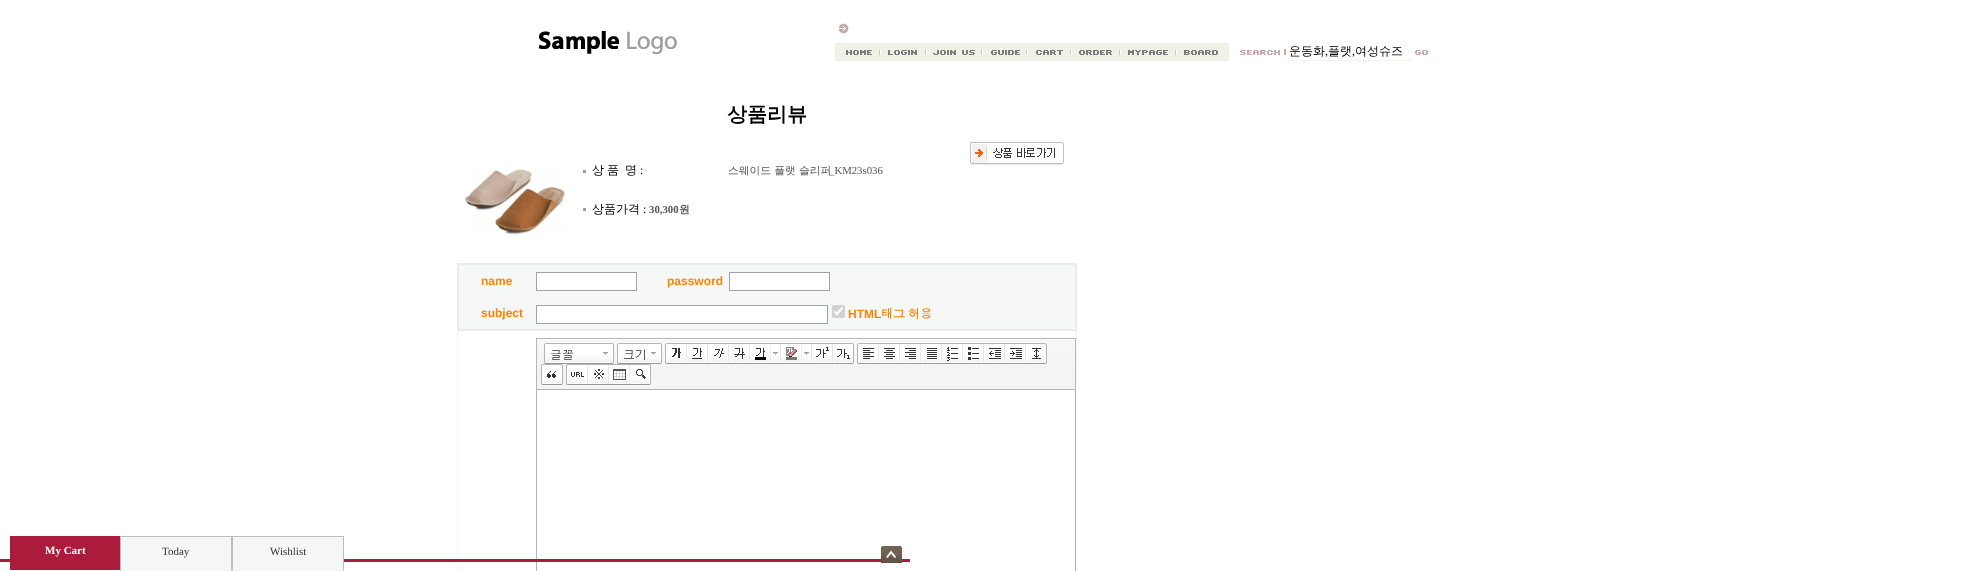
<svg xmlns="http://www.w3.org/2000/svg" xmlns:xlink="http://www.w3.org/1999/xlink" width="1963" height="571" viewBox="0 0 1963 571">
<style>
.cls-1{font:500 12px WenQuanYi Zen Hei;fill:#000000}
.cls-2{font:12px Liberation Serif;fill:#000000}
.cls-3{font:bold 20px WenQuanYi Zen Hei;fill:#000000}
.cls-4{font:500 10.75px WenQuanYi Zen Hei;fill:#555555}
.cls-5{font:10.75px Liberation Serif;fill:#555555}
.cls-6{font:bold 10.75px Liberation Serif;fill:#555555}
.cls-7{font:bold 10.75px WenQuanYi Zen Hei;fill:#555555}
.cls-8{font:bold 12px Liberation Sans;fill:#fb8404}
.cls-9{font:bold 12px Dotum;fill:#fb8404}
.cls-10{font:bold 11px Liberation Serif;fill:#ffffff}
.cls-11{font:11px Liberation Serif;fill:#333333}
</style>
<rect width="100%" height="100%" fill="#ffffff"/>
<image xlink:href="image0.png" x="538" y="31" width="139" height="23"/>
<image xlink:href="image1.png" x="838" y="23" width="11" height="11"/>
<image xlink:href="image2.png" x="835" y="43" width="46" height="18"/>
<image xlink:href="image3.png" x="881" y="43" width="46" height="18"/>
<image xlink:href="image4.png" x="927" y="43" width="56" height="18"/>
<image xlink:href="image5.png" x="983" y="43" width="45" height="18"/>
<image xlink:href="image6.png" x="1028" y="43" width="44" height="18"/>
<image xlink:href="image7.png" x="1072" y="43" width="49" height="18"/>
<image xlink:href="image8.png" x="1121" y="43" width="56" height="18"/>
<image xlink:href="image9.png" x="1177" y="43" width="52" height="18"/>
<image xlink:href="image10.png" x="1240" y="49" width="46" height="6"/>
<rect fill="#f3f5ec" x="1287" y="60" width="125" height="1"/>
<image xlink:href="image11.png" x="1415" y="50" width="13" height="5"/>
<image xlink:href="image12.png" x="970" y="142" width="94" height="23"/>
<image xlink:href="image13.png" x="465" y="169" width="100" height="66"/>
<rect fill="#9e9e9e" x="583" y="170" width="3" height="3"/>
<rect fill="#9e9e9e" x="583" y="208" width="3" height="3"/>
<rect fill="#f6f8f7" x="457" y="265" width="620" height="306"/>
<rect fill="#ebebeb" x="457" y="263" width="620" height="2"/>
<rect fill="#ebebeb" x="457" y="329" width="620" height="2"/>
<rect fill="#ebebeb" x="457" y="296" width="2" height="35"/>
<rect fill="#ebebeb" x="457" y="263" width="2" height="35"/>
<rect fill="#ebebeb" x="1075" y="296" width="2" height="35"/>
<rect fill="#ebebeb" x="1075" y="263" width="2" height="35"/>
<rect fill="#ffffff" stroke="#a3a3a3" x="536.5" y="272.5" width="100" height="18"/>
<rect fill="#ffffff" stroke="#a3a3a3" x="729.5" y="272.5" width="100" height="18"/>
<rect fill="#ffffff" stroke="#a3a3a3" x="536.5" y="305.5" width="291" height="18"/>
<rect fill="#d0d1d0" x="832" y="305" width="13" height="13" rx="2"/>
<path fill="none" stroke="#ffffff" stroke-width="2.1" d="M834.5 311.5L837 314L842.5 307.5"/>
<rect fill="#ffffff" x="458" y="331" width="618" height="240"/>
<image xlink:href="image14.png" x="536" y="338" width="540" height="233"/>
<rect fill="#ab1b3c" x="0" y="559" width="910" height="3"/>
<rect fill="#ab1b3c" x="10" y="536" width="110" height="34"/>
<rect fill="#f6f6f6" x="121" y="537" width="110" height="34"/>
<rect fill="#bebebe" x="120" y="536" width="224" height="1"/>
<rect fill="#bebebe" x="231" y="536" width="2" height="35"/>
<rect fill="#bebebe" x="120" y="536" width="1" height="35"/>
<rect fill="#f6f6f6" x="233" y="537" width="110" height="34"/>
<rect fill="#bebebe" x="343" y="536" width="1" height="35"/>
<image xlink:href="image15.png" x="881" y="546" width="21" height="17"/>
<text class="cls-1" x="1289" y="55">운동화</text>
<text class="cls-2" x="1325" y="55">,</text>
<text class="cls-1" x="1328" y="55">플랫</text>
<text class="cls-2" x="1352" y="55">,</text>
<text class="cls-1" x="1355" y="55">여성슈즈</text>
<text class="cls-3" x="727" y="121">상품리뷰</text>
<text class="cls-1" x="592" y="174">상</text>
<text class="cls-1" x="607" y="174">품</text>
<text class="cls-1" x="625" y="174">명</text>
<text class="cls-2" x="640" y="174">:</text>
<text class="cls-4" x="728" y="174">스웨이드 플랫 슬리퍼</text>
<text class="cls-5" x="829" y="174">_KM23s036</text>
<text class="cls-1" x="592" y="213">상품가격</text>
<text class="cls-2" x="643" y="213">:</text>
<text class="cls-6" x="649" y="213">30,300</text>
<text class="cls-7" x="679" y="213">원</text>
<text class="cls-8" x="481" y="285">name</text>
<text class="cls-8" x="667" y="285">password</text>
<text class="cls-8" x="481" y="317">subject</text>
<text class="cls-8" x="848" y="318">HTML</text>
<text class="cls-9" x="881" y="318" word-spacing="-1">태그 허용</text>
<text class="cls-10" x="45" y="554">My Cart</text>
<text class="cls-11" x="162" y="555">Today</text>
<text class="cls-11" x="270" y="555">Wishlist</text>
</svg>
